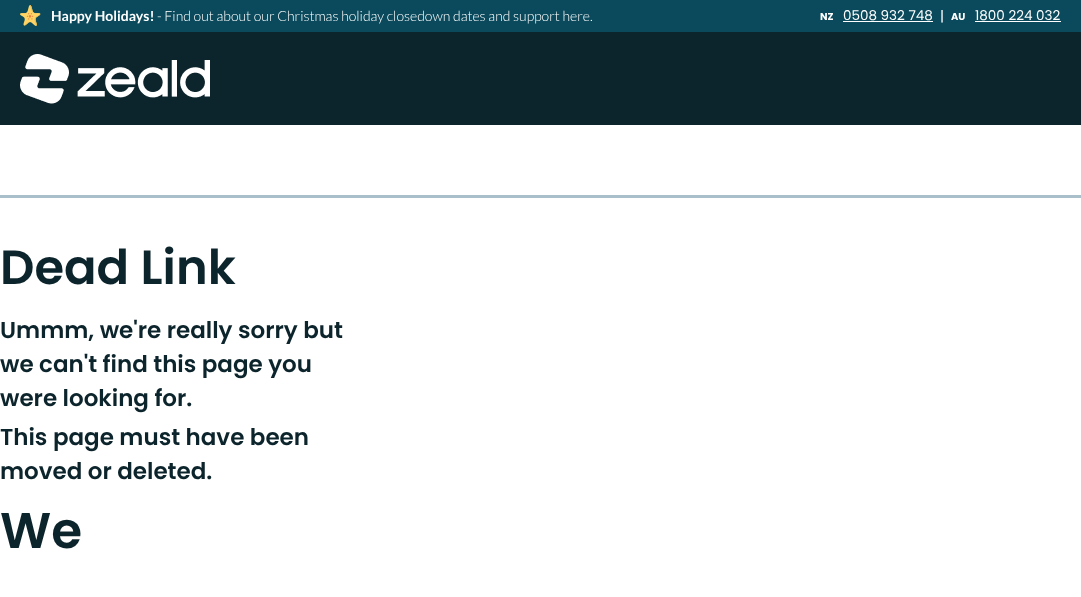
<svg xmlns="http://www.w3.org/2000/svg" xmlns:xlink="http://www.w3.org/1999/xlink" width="1081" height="597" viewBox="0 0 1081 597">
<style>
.cls-1{font:bold 14px Lato;fill:#ffffff}
.cls-2{font:300 14px Lato;fill:#ffffff}
.cls-3{font:bold 10px Poppins;fill:#ffffff}
.cls-4{font:13.5px Poppins;fill:#ffffff}
.cls-5{font:14px Poppins;fill:#ffffff}
.cls-6{font:600 48px Poppins;fill:#0c242b}
.cls-7{font:600 23px Poppins;fill:#0c242b}
.cls-8{font:600 50px Poppins;fill:#0c242b}
</style>
<rect width="100%" height="100%" fill="#ffffff"/>
<rect fill="#0c242b" x="0" y="32" width="1081" height="93"/>
<rect fill="#0a4a5c" x="0" y="0" width="1081" height="32"/>
<image xlink:href="image0.png" x="20" y="5" width="21" height="21"/>
<rect fill="#ffffff" x="843" y="21" width="90" height="1"/>
<rect fill="#ffffff" x="975" y="21" width="86" height="1"/>
<image xlink:href="image1.png" x="20" y="54" width="190" height="50"/>
<rect fill="#a9bfc9" x="0" y="195" width="1081" height="3"/>
<text class="cls-1" x="51" y="21">Happy Holidays!</text>
<text class="cls-2" x="157" y="21">- Find out about our Christmas holiday closedown dates and support here.</text>
<text class="cls-3" x="820" y="20">NZ</text>
<text class="cls-4" x="843" y="20">0508 932 748</text>
<text class="cls-5" x="940" y="21">|</text>
<text class="cls-3" x="951" y="20">AU</text>
<text class="cls-4" x="975" y="20">1800 224 032</text>
<text class="cls-6" x="0" y="284">Dead Link</text>
<text class="cls-7"><tspan x="0" y="338">Ummm, we're really sorry but</tspan><tspan x="0" y="372">we can't find this page you</tspan><tspan x="0" y="406">were looking for.</tspan><tspan x="0" y="445">This page must have been</tspan><tspan x="0" y="479">moved or deleted.</tspan></text>
<text class="cls-8" x="0" y="548">We</text>
</svg>
